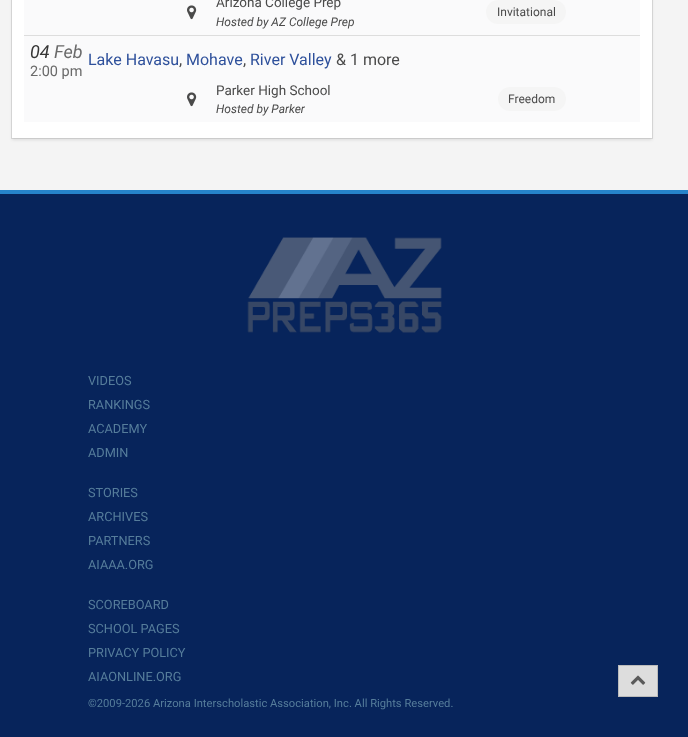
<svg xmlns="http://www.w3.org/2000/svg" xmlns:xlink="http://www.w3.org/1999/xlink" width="688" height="737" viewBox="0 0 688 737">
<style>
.cls-1{font:13.5px Roboto;fill:#4a4a4a}
.cls-2{font:italic 12px Roboto;fill:#4a4a4a}
.cls-3{font:12px Roboto;fill:#4a4a4a}
.cls-4{font:italic 18px Roboto;fill:#363636}
.cls-5{font:italic 18px Roboto;fill:#6a6a6a}
.cls-6{font:14.5px Roboto;fill:#6a6a6a}
.cls-7{font:16px Roboto;fill:#2e509b}
.cls-8{font:16px Roboto;fill:#4a4a4a}
.cls-9{font:12.75px Roboto;fill:#567d9b}
.cls-10{font:11.2px Roboto;fill:#567d9b}
</style>
<rect width="100%" height="100%" fill="#f4f4f4"/>
<rect fill="none" stroke="#dddddd" x="11.5" y="-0.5" width="641" height="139"/>
<rect fill="#0a0a0a" fill-opacity="0.1" filter="blur(1.5px)" x="12" y="-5" width="640" height="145"/>
<rect fill="#ffffff" x="12" y="0" width="640" height="138"/>
<rect fill="#fafafb" x="24" y="0" width="616" height="35"/>
<image xlink:href="image0.png" x="187" y="5" width="10" height="15"/>
<rect fill="#f5f5f5" x="486" y="0" width="80" height="24" rx="12"/>
<rect fill="#fafafb" x="24" y="36" width="616" height="86"/>
<rect fill="#dddddd" x="24" y="35" width="616" height="1"/>
<image xlink:href="image0.png" x="187" y="92" width="10" height="15"/>
<rect fill="#f5f5f5" x="498" y="87" width="68" height="24" rx="12"/>
<rect fill="#07245b" x="0" y="194" width="688" height="543"/>
<rect fill="#2684cb" x="0" y="190" width="688" height="4"/>
<image xlink:href="image1.png" x="247" y="237" width="195" height="96"/>
<rect fill="#dddddd" stroke="#bbbbbb" x="618.5" y="665.5" width="39" height="31"/>
<image xlink:href="image2.png" x="630" y="675" width="16" height="10"/>
<text class="cls-1" x="216" y="7">Arizona College Prep</text>
<text class="cls-2" x="216" y="26">Hosted by AZ College Prep</text>
<text class="cls-3" x="497" y="16">Invitational</text>
<text class="cls-4" x="30" y="58">04</text>
<text class="cls-5" x="54" y="58">Feb</text>
<text class="cls-6" x="30" y="76">2:00 pm</text>
<text class="cls-7" x="88" y="65">Lake Havasu</text>
<text class="cls-8" x="179" y="65">,</text>
<text class="cls-7" x="186" y="65">Mohave</text>
<text class="cls-8" x="243" y="65">,</text>
<text class="cls-7" x="250" y="65">River Valley</text>
<text class="cls-8" x="336" y="65">&amp; 1 more</text>
<text class="cls-1" x="216" y="95">Parker High School</text>
<text class="cls-2" x="216" y="113">Hosted by Parker</text>
<text class="cls-3" x="508" y="103">Freedom</text>
<text class="cls-9"><tspan x="88" y="385">VIDEOS</tspan><tspan x="88" y="409">RANKINGS</tspan><tspan x="88" y="433">ACADEMY</tspan><tspan x="88" y="457">ADMIN</tspan></text>
<text class="cls-9"><tspan x="88" y="497">STORIES</tspan><tspan x="88" y="521">ARCHIVES</tspan><tspan x="88" y="545">PARTNERS</tspan><tspan x="88" y="569">AIAAA.ORG</tspan></text>
<text class="cls-9"><tspan x="88" y="609">SCOREBOARD</tspan><tspan x="88" y="633">SCHOOL PAGES</tspan><tspan x="88" y="657">PRIVACY POLICY</tspan><tspan x="88" y="681">AIAONLINE.ORG</tspan></text>
<text class="cls-10" x="88" y="707">©2009-2026 Arizona Interscholastic Association, Inc. All Rights Reserved.</text>
</svg>
